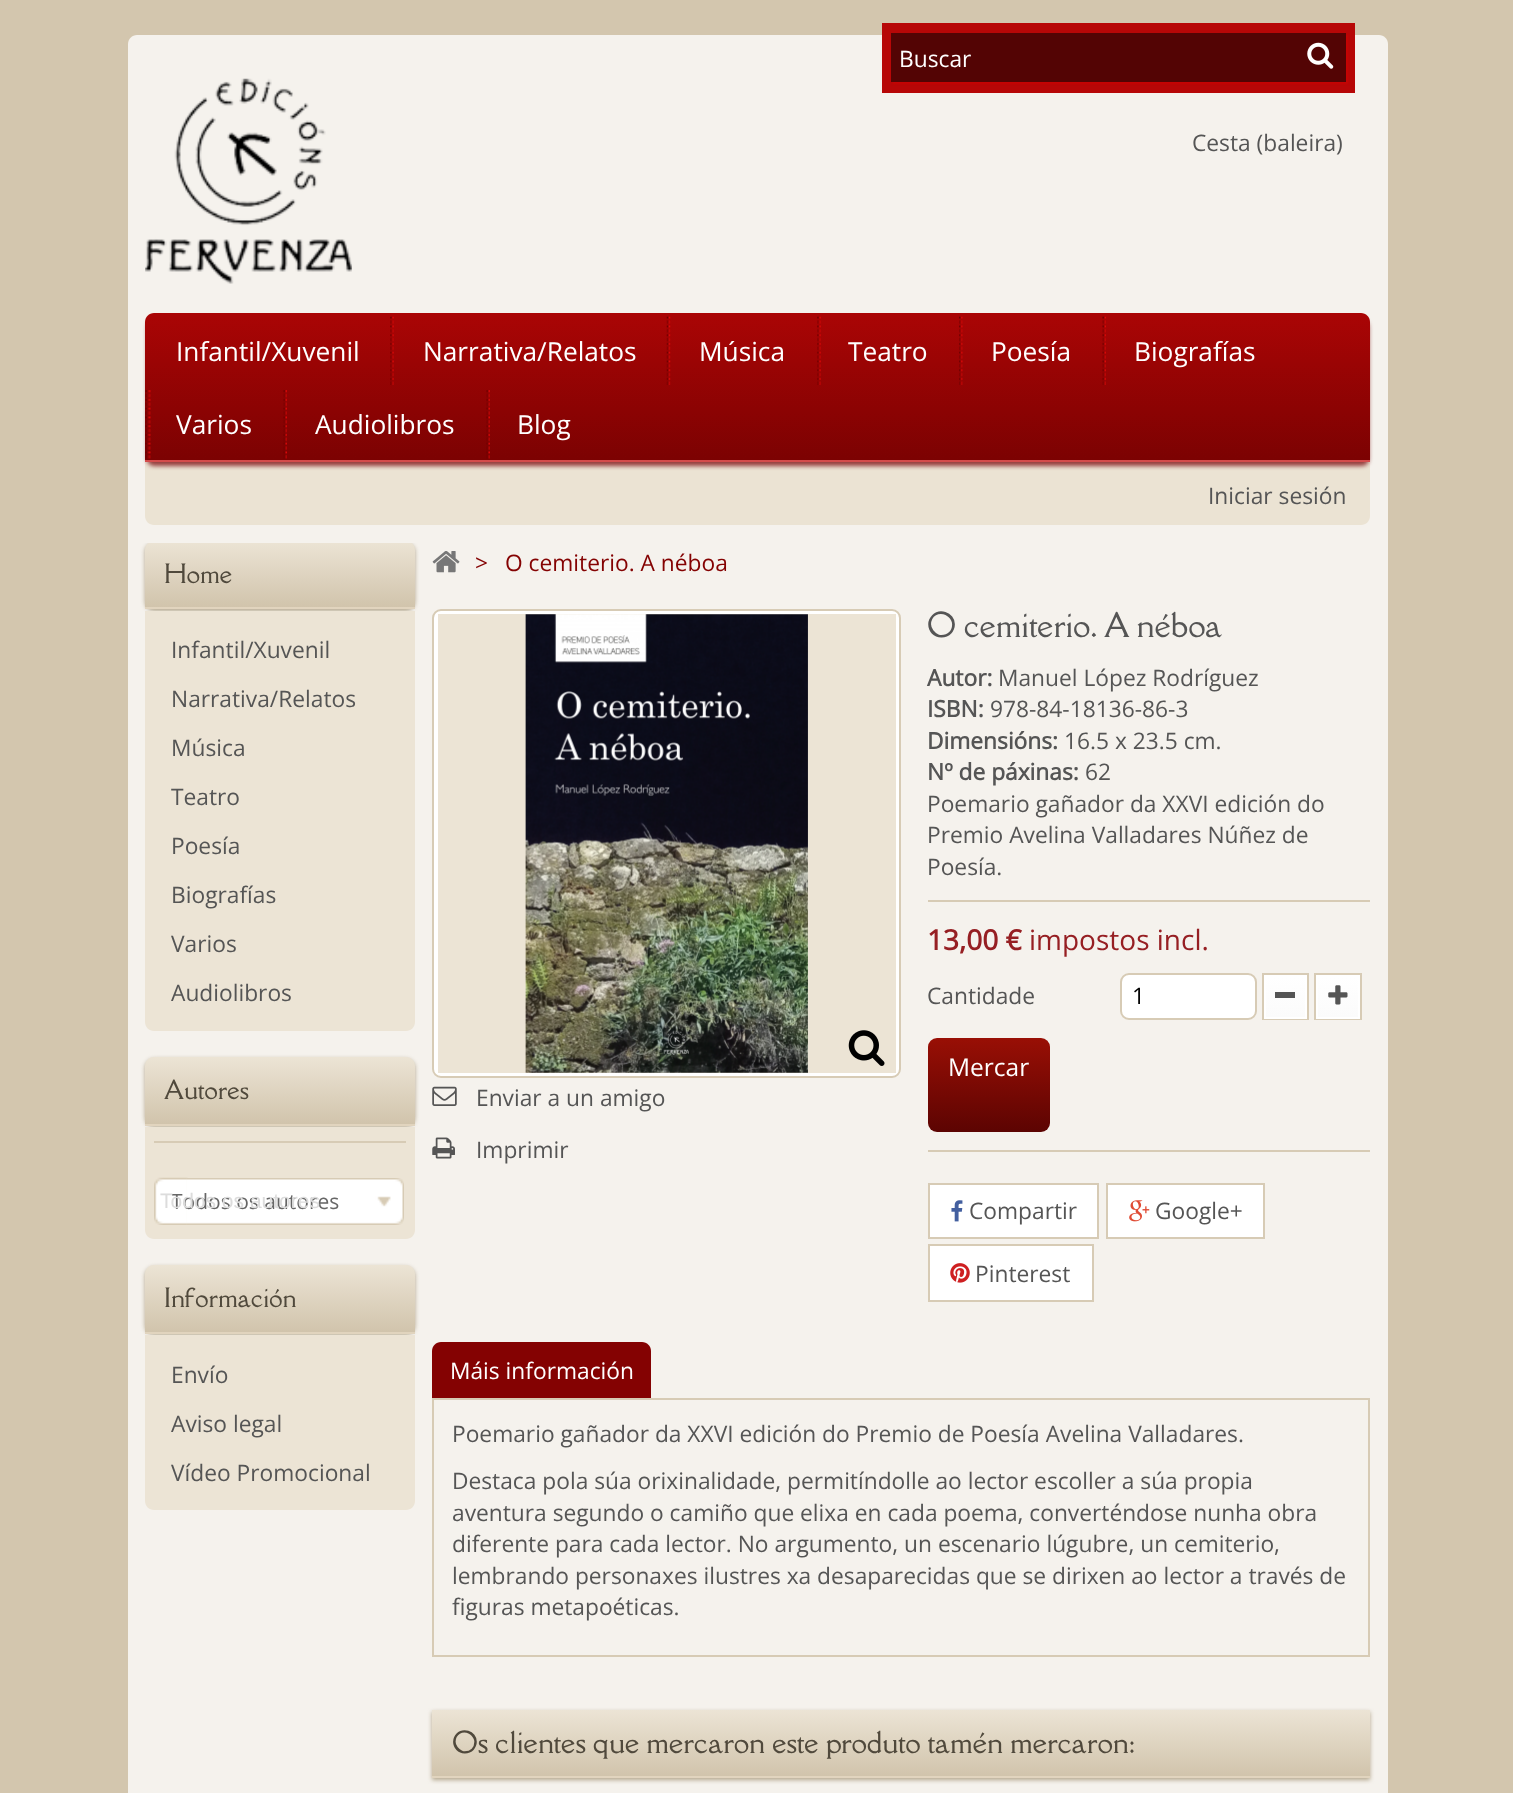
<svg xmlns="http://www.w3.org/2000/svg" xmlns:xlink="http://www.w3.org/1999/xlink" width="1513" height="1793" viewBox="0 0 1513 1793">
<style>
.cls-1{font:22.75px Open Sans;fill:#ffffff}
.cls-2{font:22.75px Open Sans;fill:#555555}
.cls-3{font:26.25px Open Sans;fill:#ffffff}
.cls-4{font:24.5px Della Respira;fill:#50493c}
.cls-5{font:21px Open Sans;fill:#666666}
.cls-6{font:21px Liberation Sans;fill:#dcdcdc}
.cls-7{font:22.75px Open Sans;fill:#840202}
.cls-8{font:31.5px Della Respira;fill:#555555}
.cls-9{font:bold 22.75px Open Sans;fill:#555555}
.cls-10{font:bold 28px Open Sans;fill:#961f23}
.cls-11{font:28px Open Sans;fill:#961f23}
.cls-12{font:22.75px Open Sans;fill:#000000}
.cls-13{font:24.5px Open Sans;fill:#ffffff}
.cls-14{font:28px Della Respira;fill:#50493c}
</style>
<defs>
<linearGradient id="g1" gradientUnits="userSpaceOnUse" x1="280" y1="541" x2="280" y2="607"><stop offset="0" stop-color="#ece4d5"/><stop offset="1" stop-color="#d1c4ac"/></linearGradient>
<linearGradient id="g2" gradientUnits="userSpaceOnUse" x1="758" y1="313" x2="758" y2="460"><stop offset="0" stop-color="#aa0505"/><stop offset="1" stop-color="#7c0202"/></linearGradient>
<linearGradient id="g3" gradientUnits="userSpaceOnUse" x1="280" y1="1057" x2="280" y2="1124"><stop offset="0" stop-color="#ece4d5"/><stop offset="1" stop-color="#d1c4ac"/></linearGradient>
<linearGradient id="g4" gradientUnits="userSpaceOnUse" x1="280" y1="1265" x2="280" y2="1332"><stop offset="0" stop-color="#ece4d5"/><stop offset="1" stop-color="#d1c4ac"/></linearGradient>
<linearGradient id="g5" gradientUnits="userSpaceOnUse" x1="1285" y1="977" x2="1285" y2="1017"><stop offset="0" stop-color="#ffffff"/><stop offset="1" stop-color="#fbfbfb"/></linearGradient>
<linearGradient id="g6" gradientUnits="userSpaceOnUse" x1="1338" y1="977" x2="1338" y2="1017"><stop offset="0" stop-color="#ffffff"/><stop offset="1" stop-color="#fbfbfb"/></linearGradient>
<linearGradient id="g7" gradientUnits="userSpaceOnUse" x1="989" y1="1038" x2="989" y2="1132"><stop offset="0" stop-color="#990f05"/><stop offset="1" stop-color="#5c0402"/></linearGradient>
<linearGradient id="g8" gradientUnits="userSpaceOnUse" x1="901" y1="1710" x2="901" y2="1776"><stop offset="0" stop-color="#ece4d5"/><stop offset="1" stop-color="#d1c4ac"/></linearGradient>
<clipPath id="clip1"><rect x="172" y="1178" width="232" height="47"/></clipPath>
</defs>
<rect width="100%" height="100%" fill="#d3c6ae"/>
<rect fill="#f5f2ed" x="128" y="543" width="1260" height="1250"/>
<rect fill="#b3a68c" filter="blur(2px)" x="145" y="543" width="270" height="68" rx="9"/>
<path fill="url(#g1)" d="M154 541H406C411 541 415 545 415 550V607H145V550C145 545 149 541 154 541Z"/>
<path fill="#f5f2ed" d="M137 35H1379C1384 35 1388 39 1388 44V543H128V44C128 39 132 35 137 35Z"/>
<rect fill="#b70707" x="882" y="23" width="473" height="70"/>
<rect fill="#ce0202" fill-opacity="0.66" filter="blur(1px)" x="893" y="35" width="455" height="49"/>
<rect fill="#530404" x="891" y="33" width="455" height="49"/>
<image xlink:href="image0.png" x="1307" y="42" width="27" height="27"/>
<image xlink:href="image1.png" x="145" y="78" width="207" height="206"/>
<path fill="#ebe3d3" d="M145 462H1370V516C1370 521 1366 525 1361 525H154C149 525 145 521 145 516Z"/>
<rect fill="#953d3d" filter="blur(2px)" x="147" y="320" width="1222" height="146" rx="7"/>
<path fill="url(#g2)" d="M154 313H1361C1366 313 1370 317 1370 322V460H145V322C145 317 149 313 154 313Z"/>
<rect fill="#d44c4c" x="145" y="460" width="1225" height="2"/>
<image xlink:href="image2.png" x="390" y="316" width="4" height="69"/>
<image xlink:href="image3.png" x="666" y="316" width="5" height="69"/>
<image xlink:href="image2.png" x="817" y="316" width="4" height="69"/>
<image xlink:href="image4.png" x="959" y="316" width="4" height="69"/>
<image xlink:href="image5.png" x="1102" y="316" width="4" height="69"/>
<image xlink:href="image6.png" x="145" y="390" width="6" height="69"/>
<image xlink:href="image7.png" x="283" y="390" width="4" height="69"/>
<image xlink:href="image7.png" x="486" y="390" width="4" height="69"/>
<rect fill="#e1d4be" x="145" y="607" width="270" height="2"/>
<path fill="#ece4d5" d="M145 611H415V1022C415 1027 411 1031 406 1031H154C149 1031 145 1027 145 1022Z"/>
<rect fill="#b3a68c" filter="blur(2px)" x="145" y="1059" width="270" height="68" rx="9"/>
<path fill="url(#g3)" d="M154 1057H406C411 1057 415 1061 415 1066V1124H145V1066C145 1061 149 1057 154 1057Z"/>
<rect fill="#e1d4be" x="145" y="1124" width="270" height="2"/>
<path fill="#ece4d5" d="M145 1127H415V1230C415 1235 411 1239 406 1239H154C149 1239 145 1235 145 1230Z"/>
<rect fill="#d7cbb5" x="154" y="1141" width="252" height="2"/>
<image xlink:href="image8.png" x="154" y="1177" width="34" height="48"/>
<image xlink:href="image9.png" x="187" y="1178" width="217" height="47"/>
<rect fill="#b3a68c" filter="blur(2px)" x="145" y="1267" width="270" height="68" rx="9"/>
<path fill="url(#g4)" d="M154 1265H406C411 1265 415 1269 415 1274V1332H145V1274C145 1269 149 1265 154 1265Z"/>
<rect fill="#e1d4be" x="145" y="1332" width="270" height="2"/>
<path fill="#ece4d5" d="M145 1335H415V1501C415 1506 411 1510 406 1510H154C149 1510 145 1506 145 1501Z"/>
<image xlink:href="image10.png" x="432" y="551" width="28" height="22"/>
<rect fill="#ffffff" stroke="#d7cbb5" stroke-width="2" x="433" y="610" width="467" height="467" rx="8"/>
<rect fill="#ece4d5" x="438" y="614" width="458" height="459"/>
<image xlink:href="image11.png" x="525" y="614" width="283" height="459"/>
<image xlink:href="image12.png" x="848" y="1030" width="37" height="36"/>
<image xlink:href="image13.png" x="432" y="1086" width="25" height="20"/>
<image xlink:href="image14.png" x="432" y="1137" width="23" height="22"/>
<rect fill="#d7cbb5" x="928" y="900" width="442" height="2"/>
<rect fill="#ffffff" stroke="#d7cbb5" stroke-width="2" x="1121" y="974" width="135" height="45" rx="8"/>
<rect fill="none" stroke="#d7cbb5" stroke-width="2" x="1263" y="974" width="45" height="45"/>
<rect fill="url(#g5)" x="1266" y="977" width="39" height="40"/>
<rect fill="none" stroke="#ffffff" stroke-width="2" x="1265" y="976" width="41" height="42"/>
<rect fill="#555555" x="1275" y="992" width="20" height="6"/>
<rect fill="none" stroke="#d7cbb5" stroke-width="2" x="1315" y="974" width="46" height="45"/>
<rect fill="url(#g6)" x="1318" y="977" width="40" height="40"/>
<rect fill="none" stroke="#ffffff" stroke-width="2" x="1317" y="976" width="42" height="42"/>
<image xlink:href="image15.png" x="1328" y="985" width="20" height="20"/>
<rect fill="url(#g7)" x="928" y="1038" width="122" height="94" rx="9"/>
<rect fill="#d7cbb5" x="928" y="1150" width="442" height="2"/>
<rect fill="#ffffff" stroke="#d7cbb5" stroke-width="2" x="929" y="1184" width="169" height="54"/>
<image xlink:href="image16.png" x="951" y="1200" width="12" height="22"/>
<rect fill="#ffffff" stroke="#d7cbb5" stroke-width="2" x="1107" y="1184" width="157" height="54"/>
<image xlink:href="image17.png" x="1129" y="1200" width="21" height="22"/>
<rect fill="#ffffff" stroke="#d7cbb5" stroke-width="2" x="929" y="1245" width="164" height="56"/>
<image xlink:href="image18.png" x="950" y="1263" width="20" height="20"/>
<path fill="#840202" d="M441 1342H642C647 1342 651 1346 651 1351V1398H432V1351C432 1346 436 1342 441 1342Z"/>
<rect fill="none" stroke="#d7cbb5" stroke-width="2" x="433" y="1399" width="936" height="257"/>
<rect fill="#b3a68c" filter="blur(2px)" x="432" y="1712" width="938" height="68"/>
<rect fill="url(#g8)" x="432" y="1710" width="938" height="66"/>
<rect fill="#e1d4be" x="432" y="1776" width="938" height="2"/>
<text class="cls-1" x="899" y="67">Buscar</text>
<text class="cls-2" x="1192" y="151">Cesta (baleira)</text>
<text class="cls-3" x="176" y="361">Infantil/Xuvenil</text>
<text class="cls-3" x="423" y="361">Narrativa/Relatos</text>
<text class="cls-3" x="699" y="361">Música</text>
<text class="cls-3" x="848" y="361">Teatro</text>
<text class="cls-3" x="991" y="361">Poesía</text>
<text class="cls-3" x="1134" y="361">Biografías</text>
<text class="cls-3" x="176" y="434">Varios</text>
<text class="cls-3" x="315" y="434">Audiolibros</text>
<text class="cls-3" x="517" y="434">Blog</text>
<text class="cls-2" x="1208" y="504">Iniciar sesión</text>
<text class="cls-4" x="164" y="583">Home</text>
<text class="cls-2" x="171" y="658">Infantil/Xuvenil</text>
<text class="cls-2" x="171" y="707">Narrativa/Relatos</text>
<text class="cls-2" x="171" y="756">Música</text>
<text class="cls-2" x="171" y="805">Teatro</text>
<text class="cls-2" x="171" y="854">Poesía</text>
<text class="cls-2" x="171" y="903">Biografías</text>
<text class="cls-2" x="171" y="952">Varios</text>
<text class="cls-2" x="171" y="1001">Audiolibros</text>
<text class="cls-4" x="164" y="1099">Autores</text>
<g clip-path="url(#clip1)">
<text class="cls-5" x="171" y="1209">Todos os autores</text>
</g>
<text class="cls-6" x="160" y="1208">Todos os autores</text>
<text class="cls-4" x="164" y="1307">Información</text>
<text class="cls-2" x="171" y="1383">Envío</text>
<text class="cls-2" x="171" y="1432">Aviso legal</text>
<text class="cls-2" x="171" y="1481">Vídeo Promocional</text>
<text class="cls-7" x="475" y="571">&gt;</text>
<text class="cls-7" x="505" y="571">O cemiterio. A néboa</text>
<text class="cls-2" x="476" y="1106">Enviar a un amigo</text>
<text class="cls-2" x="476" y="1158">Imprimir</text>
<text class="cls-8" x="927" y="637">O cemiterio. A néboa</text>
<text class="cls-9" x="927" y="686">Autor:</text>
<text class="cls-2" x="998" y="686">Manuel López Rodríguez</text>
<text class="cls-9" x="927" y="717">ISBN:</text>
<text class="cls-2" x="990" y="717">978-84-18136-86-3</text>
<text class="cls-9" x="927" y="749">Dimensións:</text>
<text class="cls-2" x="1064" y="749">16.5 x 23.5 cm.</text>
<text class="cls-9" x="927" y="780">Nº de páxinas:</text>
<text class="cls-2" x="1085" y="780">62</text>
<text class="cls-2"><tspan x="927" y="812">Poemario gañador da XXVI edición do</tspan><tspan x="927" y="843">Premio Avelina Valladares Núñez de</tspan><tspan x="927" y="875">Poesía.</tspan></text>
<text class="cls-10" x="927" y="950">13,00 €</text>
<text class="cls-11" x="1029" y="950">impostos incl.</text>
<text class="cls-2" x="927" y="1004">Cantidade</text>
<text class="cls-12" x="1132" y="1004">1</text>
<text class="cls-13" x="948" y="1076">Mercar</text>
<text class="cls-2" x="969" y="1219">Compartir</text>
<text class="cls-2" x="1155" y="1219">Google+</text>
<text class="cls-2" x="975" y="1282">Pinterest</text>
<text class="cls-1" x="450" y="1379">Máis información</text>
<text class="cls-2" x="452" y="1442">Poemario gañador da XXVI edición do Premio de Poesía Avelina Valladares.</text>
<text class="cls-2"><tspan x="452" y="1489">Destaca pola súa orixinalidade, permitíndolle ao lector escoller a súa propia</tspan><tspan x="452" y="1521">aventura segundo o camiño que elixa en cada poema, converténdose nunha obra</tspan><tspan x="452" y="1552">diferente para cada lector. No argumento, un escenario lúgubre, un cemiterio,</tspan><tspan x="452" y="1584">lembrando personaxes ilustres xa desaparecidas que se dirixen ao lector a través de</tspan><tspan x="452" y="1615">figuras metapoéticas.</tspan></text>
<text class="cls-14" x="452" y="1753">Os clientes que mercaron este produto tamén mercaron:</text>
</svg>
